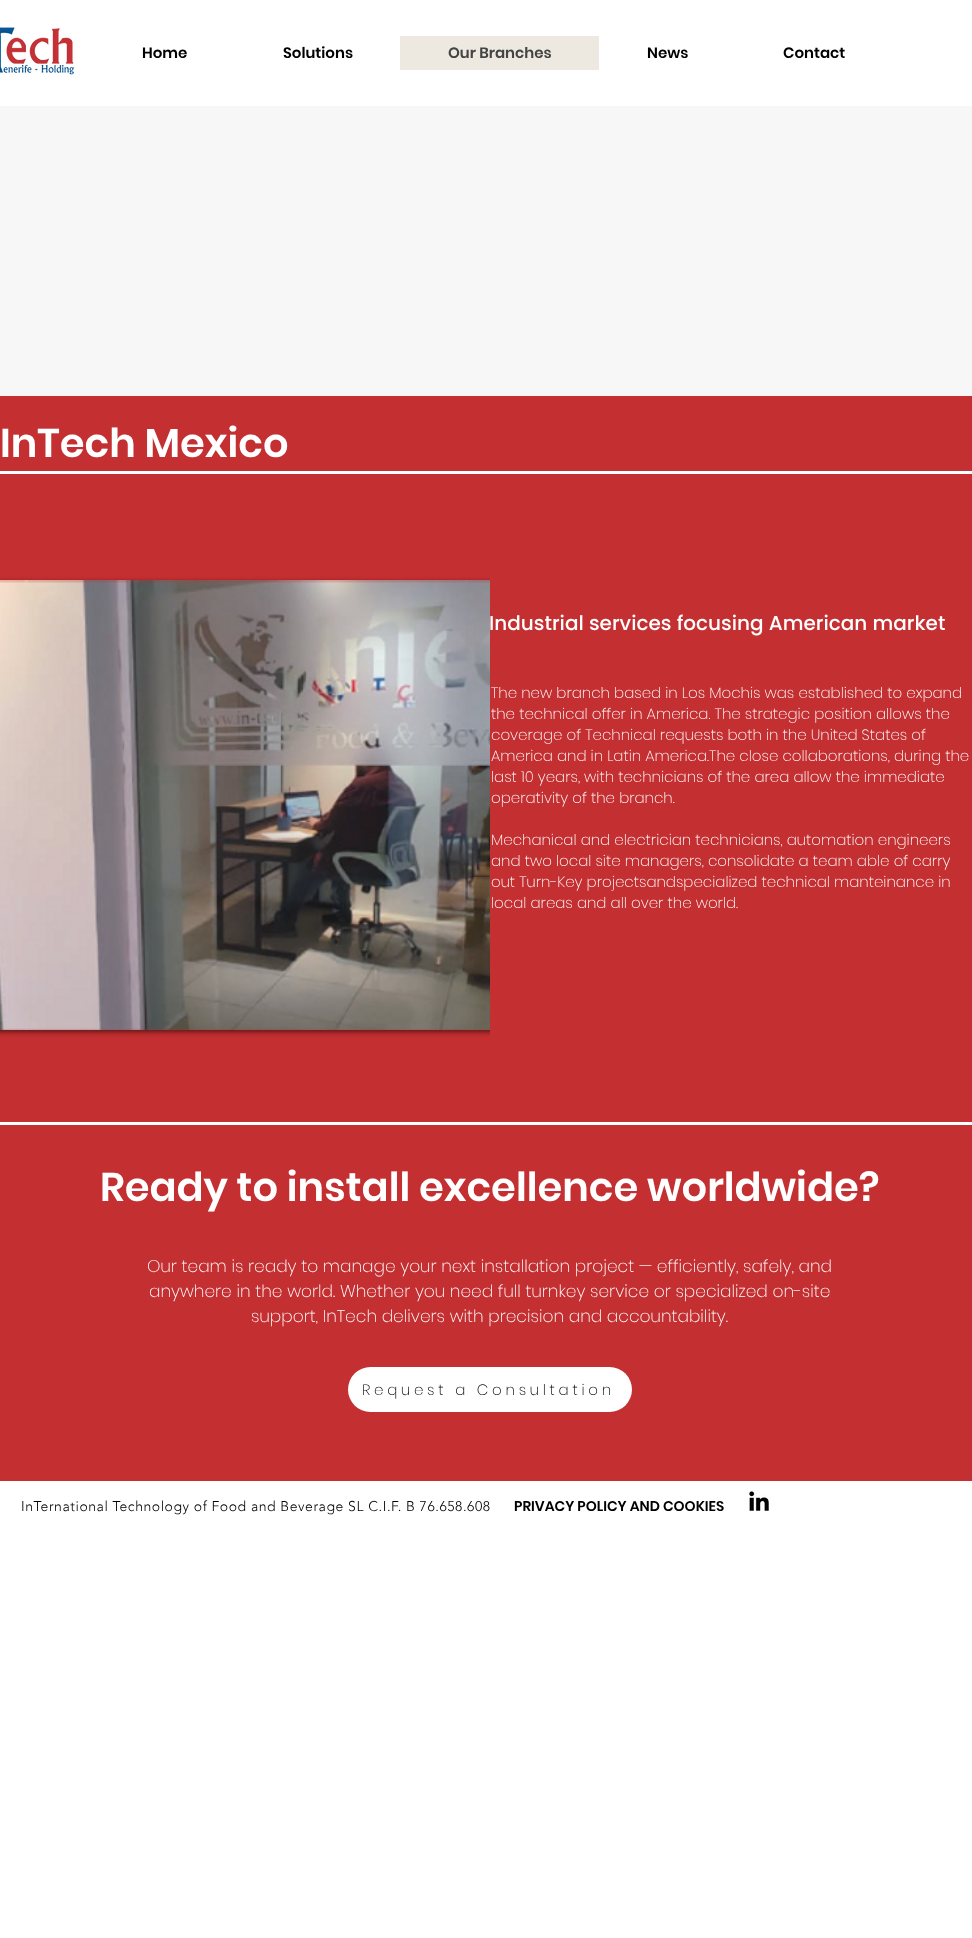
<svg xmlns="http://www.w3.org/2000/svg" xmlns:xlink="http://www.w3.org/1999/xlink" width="972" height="1938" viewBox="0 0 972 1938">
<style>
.cls-1{font:600 15px Poppins;fill:#000000}
.cls-2{font:600 15px Poppins;fill:#444444}
.cls-3{font:600 40px Poppins;fill:#ffffff}
.cls-4{font:500 20px Poppins;fill:#ffffff}
.cls-5{font:200 15px Poppins;fill:#ffffff}
.cls-6{font:200 17px Poppins;fill:#ffffff}
.cls-7{font:200 15px Poppins;letter-spacing:3.75px;fill:#000000}
.cls-8{font:300 14px 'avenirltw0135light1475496';letter-spacing:0.55px;fill:#000000}
.cls-9{font:600 14px Poppins;fill:#000000}
</style>
<defs>
<clipPath id="clip1"><path d="M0 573H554V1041H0ZM-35 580H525C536 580 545 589 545 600V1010C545 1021 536 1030 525 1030H-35C-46 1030-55 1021-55 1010V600C-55 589-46 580-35 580Z" clip-rule="evenodd"/></clipPath>
</defs>
<rect width="100%" height="100%" fill="#ffffff"/>
<image xlink:href="image0.png" x="0" y="27" width="75" height="48"/>
<rect fill="#ede9e1" x="400" y="36" width="199" height="34"/>
<rect fill="#f7f7f7" x="0" y="106" width="972" height="290"/>
<rect fill="#c42f32" x="0" y="396" width="972" height="92"/>
<rect fill="#ffffff" x="0" y="471" width="972" height="3"/>
<rect fill="#c42f32" x="0" y="488" width="490" height="634"/>
<g clip-path="url(#clip1)">
<rect fill="#000000" fill-opacity="0.53" filter="blur(2.5px)" x="-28" y="582" width="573" height="450" rx="20"/>
</g>
<image xlink:href="image1.png" x="0" y="580" width="490" height="450"/>
<rect fill="#c42f32" x="490" y="488" width="482" height="634"/>
<rect fill="#c42f32" x="0" y="1125" width="972" height="356"/>
<rect fill="#ffffff" x="348" y="1367" width="284" height="45" rx="22.5"/>
<image xlink:href="image2.png" x="749" y="1491" width="20" height="20"/>
<text class="cls-1" x="142" y="58">Home</text>
<text class="cls-1" x="283" y="58">Solutions</text>
<text class="cls-2" x="448" y="58">Our Branches</text>
<text class="cls-1" x="647" y="58">News</text>
<text class="cls-1" x="783" y="58">Contact</text>
<text class="cls-3" x="0" y="457">InTech Mexico</text>
<text class="cls-4" x="489" y="630">Industrial services focusing American market</text>
<text class="cls-5"><tspan x="491" y="698">The new branch based in Los Mochis was established to expand</tspan><tspan x="491" y="719">the technical offer in America. The strategic position allows the</tspan><tspan x="491" y="740">coverage of Technical requests both in the United States of</tspan><tspan x="491" y="761">America and in Latin America.The close collaborations, during the</tspan><tspan x="491" y="782">last 10 years, with technicians of the area allow the immediate</tspan><tspan x="491" y="803">operativity of the branch.</tspan></text>
<text class="cls-5"><tspan x="491" y="845">Mechanical and electrician technicians, automation engineers</tspan><tspan x="491" y="866">and two local site managers, consolidate a team able of carry</tspan><tspan x="491" y="887">out Turn-Key projectsandspecialized technical manteinance in</tspan><tspan x="491" y="908">local areas and all over the world.</tspan></text>
<text class="cls-3" x="100" y="1201">Ready to install excellence worldwide?</text>
<text class="cls-6" x="147" y="1272">Our team is ready to manage your next installation project — efficiently, safely, and</text>
<text class="cls-6" x="149" y="1297">anywhere in the world. Whether you need full turnkey service or specialized on-site</text>
<text class="cls-6" x="251" y="1322">support, InTech delivers with precision and accountability.</text>
<text class="cls-7" x="362" y="1395">Request a Consultation</text>
<text class="cls-8" x="21" y="1511">InTernational Technology of Food and Beverage SL C.I.F. B 76.658.608</text>
<text class="cls-9" x="514" y="1511">PRIVACY POLICY AND COOKIES</text>
</svg>
